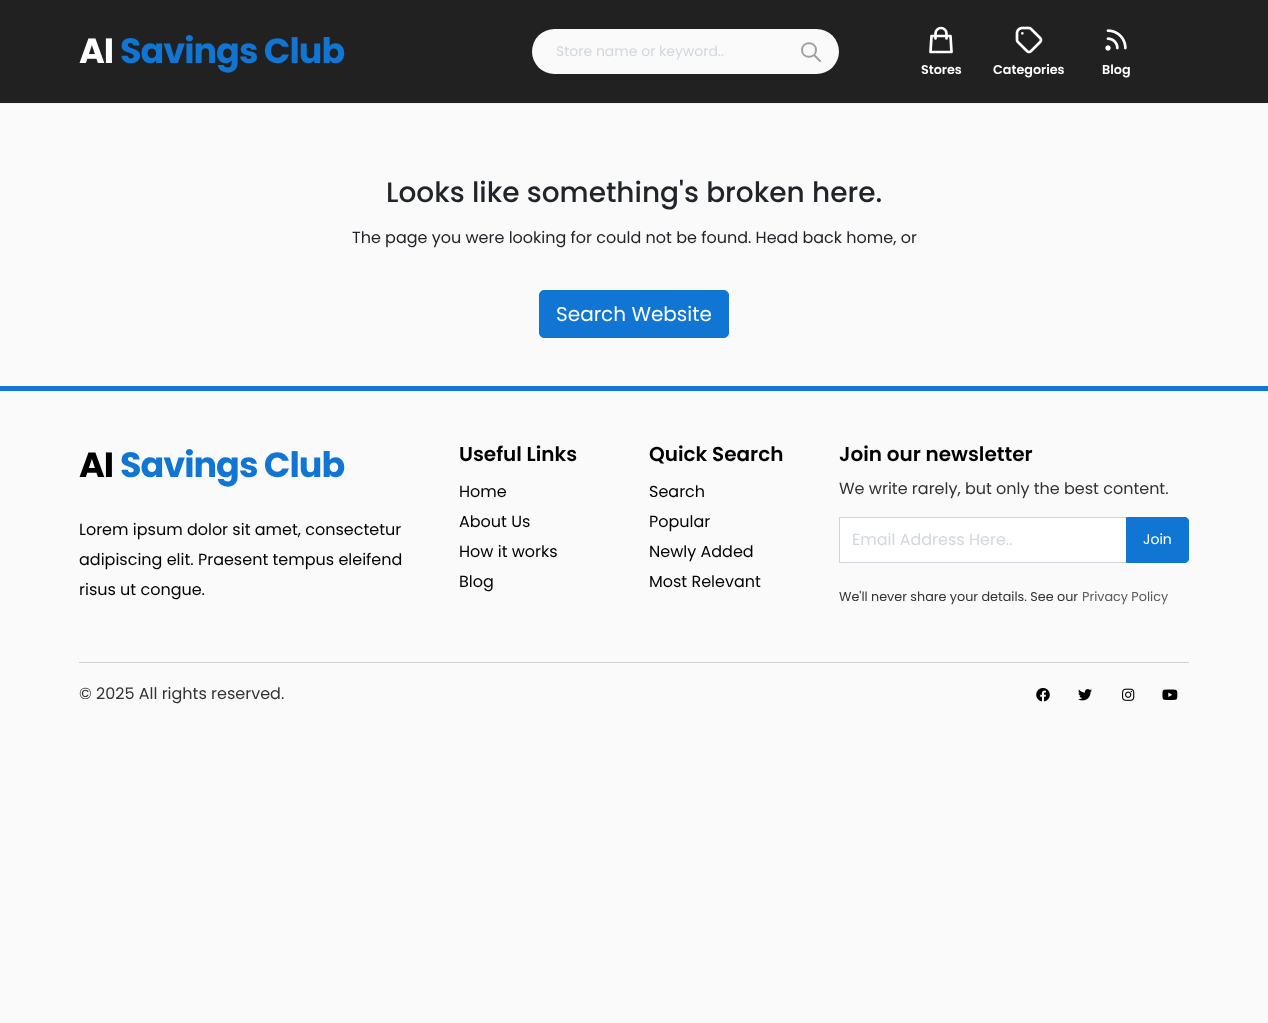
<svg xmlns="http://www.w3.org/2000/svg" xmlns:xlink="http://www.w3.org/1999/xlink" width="1268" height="1023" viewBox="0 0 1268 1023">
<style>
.cls-1{font:bold 35px Poppins;letter-spacing:-1px;fill:#ffffff}
.cls-2{font:bold 35px Poppins;letter-spacing:-1px;fill:#1075d3}
.cls-3{font:14px Poppins;fill:#d2d8dd}
.cls-4{font:600 12.75px Poppins;fill:#ffffff}
.cls-5{font:500 28px Poppins;fill:#212529}
.cls-6{font:16px Poppins;fill:#212529}
.cls-7{font:20px Poppins;fill:#ffffff}
.cls-8{font:bold 35px Poppins;letter-spacing:-1px;fill:#000000}
.cls-9{font:16px Poppins;fill:#000000}
.cls-10{font:600 20px Poppins;fill:#000000}
.cls-11{font:16px Poppins;fill:#323232}
.cls-12{font:16px Poppins;fill:#d2d8dd}
.cls-13{font:14px Poppins;fill:#ffffff}
.cls-14{font:12.75px Poppins;fill:#323232}
.cls-15{font:12.75px Poppins;fill:#5a5a5a}
</style>
<rect width="100%" height="100%" fill="#fafafb"/>
<rect fill="#212121" x="0" y="0" width="1268" height="103"/>
<rect fill="#f2f2f2" x="0" y="103" width="1268" height="1"/>
<rect fill="#fafafb" x="532" y="29" width="307" height="45" rx="22.5"/>
<path fill="none" stroke="#9f9fa0" stroke-width="2" stroke-linecap="round" stroke-linejoin="round" d="M820 61L814 55M816 50C816 59 802 59 802 50C802 41 816 41 816 50Z"/>
<path fill="none" stroke="#ffffff" stroke-width="2.7" stroke-linecap="round" stroke-linejoin="round" d="M946.5 38.5V33.5C946.5 30.5 944 28 941 28C938 28 935.5 30.5 935.5 33.5V38.5M931.5 36H950.5L951.5 52H930.5Z"/>
<image xlink:href="image0.png" x="1015" y="26" width="28" height="28"/>
<image xlink:href="image1.png" x="1105" y="29" width="22" height="22"/>
<rect fill="#1075d3" stroke="#1075d3" x="539.5" y="290.5" width="189" height="47" rx="4.5"/>
<rect fill="#1075d3" x="0" y="386" width="1268" height="5"/>
<rect fill="#ffffff" stroke="#ced4da" x="839.5" y="517.5" width="287" height="45"/>
<path fill="#1075d3" stroke="#1075d3" d="M1126.5 517.5H1185C1187 517.5 1188.5 519 1188.5 521V559C1188.5 561 1187 562.5 1185 562.5H1126.5Z"/>
<rect fill="#cfcfcf" x="79" y="662" width="1110" height="1"/>
<image xlink:href="image2.png" x="1036" y="688" width="14" height="14"/>
<image xlink:href="image3.png" x="1078" y="689" width="14" height="12"/>
<image xlink:href="image4.png" x="1122" y="688" width="13" height="13"/>
<image xlink:href="image5.png" x="1162" y="689" width="16" height="11"/>
<text class="cls-1" x="79" y="63">AI</text>
<text class="cls-2" x="120" y="63">Savings Club</text>
<text class="cls-3" x="556" y="56">Store name or keyword..</text>
<text class="cls-4" x="921" y="74">Stores</text>
<text class="cls-4" x="993" y="74">Categories</text>
<text class="cls-4" x="1102" y="74">Blog</text>
<text class="cls-5" x="386" y="202">Looks like something's broken here.</text>
<text class="cls-6" x="352" y="243">The page you were looking for could not be found. Head back home, or</text>
<text class="cls-7" x="556" y="321">Search Website</text>
<text class="cls-8" x="79" y="477">AI</text>
<text class="cls-2" x="120" y="477">Savings Club</text>
<text class="cls-9"><tspan x="79" y="535">Lorem ipsum dolor sit amet, consectetur</tspan><tspan x="79" y="565">adipiscing elit. Praesent tempus eleifend</tspan><tspan x="79" y="595">risus ut congue.</tspan></text>
<text class="cls-10" x="459" y="461">Useful Links</text>
<text class="cls-9"><tspan x="459" y="497">Home</tspan><tspan x="459" y="527">About Us</tspan><tspan x="459" y="557">How it works</tspan><tspan x="459" y="587">Blog</tspan></text>
<text class="cls-10" x="649" y="461">Quick Search</text>
<text class="cls-9"><tspan x="649" y="497">Search</tspan><tspan x="649" y="527">Popular</tspan><tspan x="649" y="557">Newly Added</tspan><tspan x="649" y="587">Most Relevant</tspan></text>
<text class="cls-10" x="839" y="461">Join our newsletter</text>
<text class="cls-11" x="839" y="494">We write rarely, but only the best content.</text>
<text class="cls-12" x="852" y="545">Email Address Here..</text>
<text class="cls-13" x="1143" y="544">Join</text>
<text class="cls-14" x="839" y="601">We'll never share your details. See our</text>
<text class="cls-15" x="1082" y="601">Privacy Policy</text>
<text class="cls-11" x="79" y="699">© 2025 All rights reserved.</text>
</svg>
